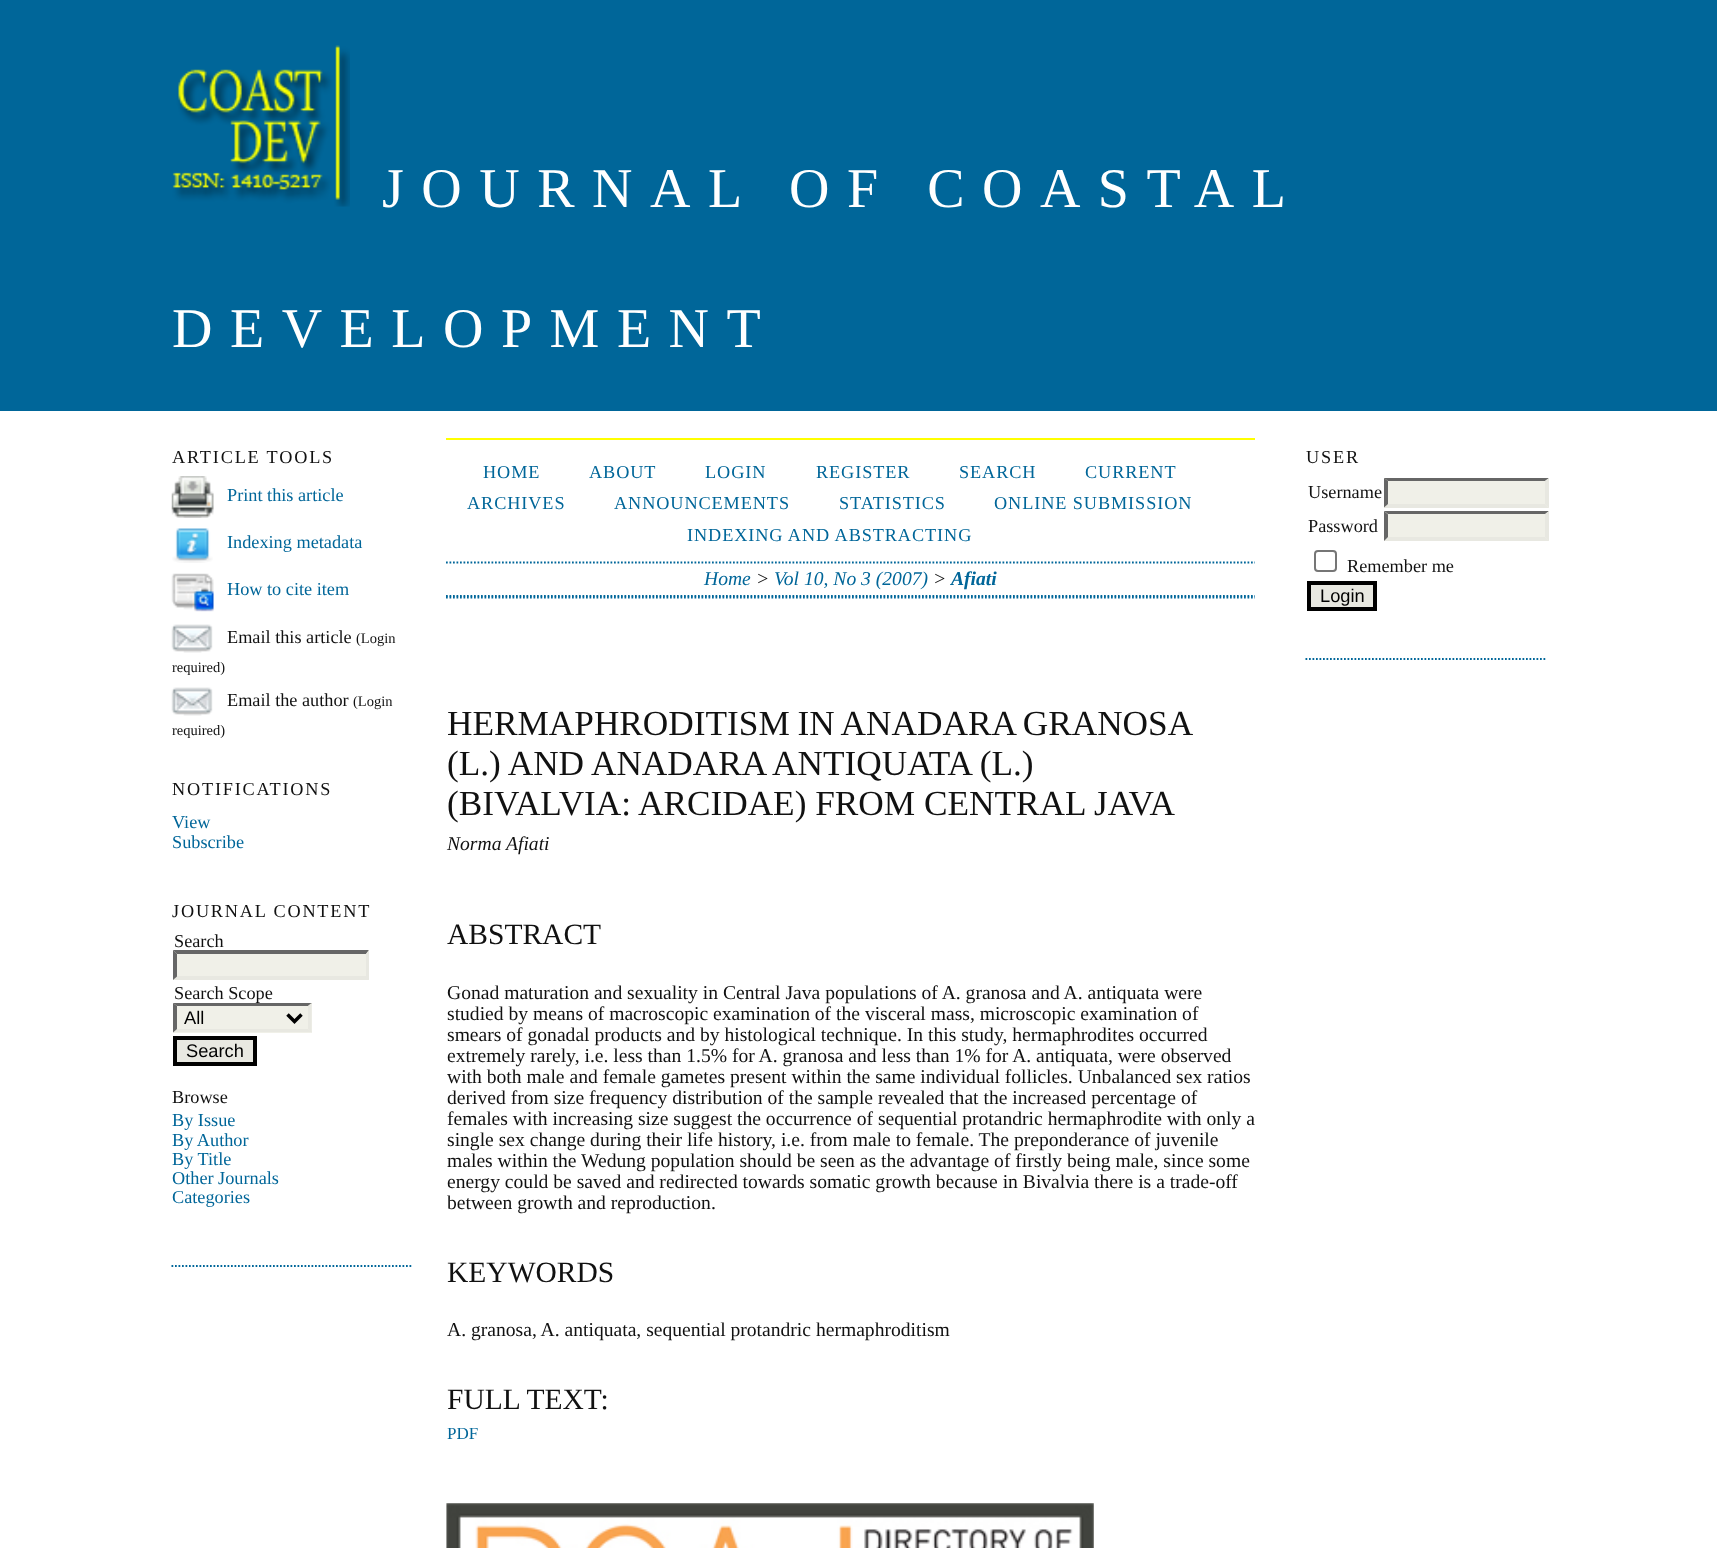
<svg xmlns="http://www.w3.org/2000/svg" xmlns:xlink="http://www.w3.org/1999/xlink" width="1717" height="1548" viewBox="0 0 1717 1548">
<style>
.cls-1{font:56px Liberation Serif;letter-spacing:17.5px;fill:#ffffff}
.cls-2{font:18.25px Liberation Serif;letter-spacing:1.8px;fill:#111111}
.cls-3{font:18.25px Liberation Serif;fill:#006699}
.cls-4{font:18.25px Liberation Serif;fill:#111111}
.cls-5{font:14.5px Liberation Serif;fill:#111111}
.cls-6{font:18.25px Liberation Sans;fill:#000000}
.cls-7{font:18.25px Liberation Serif;letter-spacing:0.9px;fill:#006699}
.cls-8{font:italic 19.6px Liberation Serif;fill:#006699}
.cls-9{font:italic 19.6px Liberation Serif;fill:#111111}
.cls-10{font:italic bold 19.6px Liberation Serif;fill:#006699}
.cls-11{font:35.25px Liberation Serif;fill:#111111}
.cls-12{font:29.5px Liberation Serif;fill:#111111}
.cls-13{font:19.6px Liberation Serif;fill:#111111}
.cls-14{font:17px Liberation Serif;fill:#006699}
</style>
<rect width="100%" height="100%" fill="#ffffff"/>
<rect fill="#006699" x="0" y="0" width="1717" height="411"/>
<image xlink:href="image0.png" x="172" y="45" width="178" height="162"/>
<path fill="none" stroke="#006699" stroke-width="1.8" stroke-dasharray="1.75 1.75" d="M171.5 1266H413"/>
<image xlink:href="image1.png" x="171" y="476" width="43" height="42"/>
<image xlink:href="image2.png" x="172" y="528" width="41" height="35"/>
<image xlink:href="image3.png" x="171" y="573" width="43" height="39"/>
<image xlink:href="image4.png" x="171" y="624" width="42" height="29"/>
<image xlink:href="image4.png" x="171" y="687" width="42" height="29"/>
<rect fill="#f0f0e8" x="173" y="950" width="196" height="30"/>
<path fill="#666666" d="M173 950H369L366 954H177Z"/>
<path fill="#e8e8e1" d="M369 950V980L366 976.5V954Z"/>
<path fill="#e8e8e1" d="M369 980H173L177 976H366Z"/>
<path fill="#666666" d="M173 980V950L177 954V976.5Z"/>
<rect fill="#f0f0e8" x="173" y="1003" width="139" height="30"/>
<path fill="#666666" d="M173 1003H312L308 1006H177Z"/>
<path fill="#e8e8e1" d="M311.5 1003V1032.5L308 1029V1006Z"/>
<path fill="#e8e8e1" d="M312 1032H173L177 1029H308Z"/>
<path fill="#666666" d="M173 1032.5V1003L177 1006V1029Z"/>
<path fill="none" stroke="#000000" stroke-width="3.5" d="M287.5 1014.5L294.5 1021.5L301.5 1014.5"/>
<rect fill="#e8e8e1" stroke="#000000" stroke-width="4" x="175" y="1038" width="80" height="26"/>
<path fill="none" stroke="#006699" stroke-width="1.8" stroke-dasharray="1.75 1.75" d="M1305.5 659H1547"/>
<rect fill="#f0f0e8" x="1384" y="478" width="165" height="30"/>
<path fill="#666666" d="M1384 478H1549L1545 481H1388Z"/>
<path fill="#e8e8e1" d="M1549 478V507.5L1545 504V481Z"/>
<path fill="#e8e8e1" d="M1549 508H1384L1388 504H1545Z"/>
<path fill="#666666" d="M1384 507.5V478L1388 481V504Z"/>
<rect fill="#f0f0e8" x="1384" y="511" width="165" height="30"/>
<path fill="#666666" d="M1384 511H1549L1545 514H1388Z"/>
<path fill="#e8e8e1" d="M1549 511V541L1545 537V514.5Z"/>
<path fill="#e8e8e1" d="M1549 541H1384L1388 537H1545Z"/>
<path fill="#666666" d="M1384 541V511L1388 514.5V537Z"/>
<rect fill="none" stroke="#767676" stroke-width="2" x="1315" y="551" width="21" height="20" rx="3"/>
<rect fill="#e8e8e1" stroke="#000000" stroke-width="4" x="1309" y="583" width="66" height="26"/>
<rect fill="#ffff00" x="446" y="438" width="809" height="2"/>
<path fill="none" stroke="#006699" stroke-width="1.8" stroke-dasharray="1.75 1.75" d="M446 562.5H1255"/>
<path fill="none" stroke="#006699" stroke-width="1.8" stroke-dasharray="1.75 1.75" d="M446 596H1255"/>
<path fill="none" stroke="#006699" stroke-width="1.8" stroke-dasharray="1.75 1.75" d="M446 597.5H1255"/>
<image xlink:href="image5.png" x="446" y="1503" width="648" height="45"/>
<text class="cls-1" x="382" y="207">JOURNAL OF COASTAL</text>
<text class="cls-1" x="172" y="347">DEVELOPMENT</text>
<text class="cls-2" x="172" y="463">ARTICLE TOOLS</text>
<text class="cls-3" x="227" y="501">Print this article</text>
<text class="cls-3" x="227" y="548">Indexing metadata</text>
<text class="cls-3" x="227" y="595">How to cite item</text>
<text class="cls-4" x="227" y="643">Email this article</text>
<text class="cls-5" x="356" y="643">(Login</text>
<text class="cls-5" x="172" y="672">required)</text>
<text class="cls-4" x="227" y="706">Email the author</text>
<text class="cls-5" x="353" y="706">(Login</text>
<text class="cls-5" x="172" y="735">required)</text>
<text class="cls-2" x="172" y="795">NOTIFICATIONS</text>
<text class="cls-3"><tspan x="172" y="828">View</tspan><tspan x="172" y="848">Subscribe</tspan></text>
<text class="cls-2" x="172" y="917">JOURNAL CONTENT</text>
<text class="cls-4" x="174" y="947">Search</text>
<text class="cls-4" x="174" y="999">Search Scope</text>
<text class="cls-6" x="184" y="1024">All</text>
<text class="cls-6" x="186" y="1057">Search</text>
<text class="cls-4" x="172" y="1103">Browse</text>
<text class="cls-3"><tspan x="172" y="1126">By Issue</tspan><tspan x="172" y="1146">By Author</tspan><tspan x="172" y="1165">By Title</tspan><tspan x="172" y="1184">Other Journals</tspan><tspan x="172" y="1203">Categories</tspan></text>
<text class="cls-2" x="1306" y="463">USER</text>
<text class="cls-4"><tspan x="1308" y="498">Username</tspan><tspan x="1308" y="532">Password</tspan></text>
<text class="cls-4" x="1347" y="572">Remember me</text>
<text class="cls-6" x="1320" y="602">Login</text>
<text class="cls-7" x="483" y="478">HOME</text>
<text class="cls-7" x="589" y="478">ABOUT</text>
<text class="cls-7" x="705" y="478">LOGIN</text>
<text class="cls-7" x="816" y="478">REGISTER</text>
<text class="cls-7" x="959" y="478">SEARCH</text>
<text class="cls-7" x="1085" y="478">CURRENT</text>
<text class="cls-7" x="467" y="509">ARCHIVES</text>
<text class="cls-7" x="614" y="509">ANNOUNCEMENTS</text>
<text class="cls-7" x="839" y="509">STATISTICS</text>
<text class="cls-7" x="994" y="509">ONLINE SUBMISSION</text>
<text class="cls-7" x="687" y="541">INDEXING AND ABSTRACTING</text>
<text class="cls-8" x="704" y="585">Home</text>
<text class="cls-9" x="756" y="585">&gt;</text>
<text class="cls-8" x="774" y="585">Vol 10, No 3 (2007)</text>
<text class="cls-9" x="933" y="585">&gt;</text>
<text class="cls-10" x="951" y="585">Afiati</text>
<text class="cls-11"><tspan x="447" y="735" word-spacing="-1">HERMAPHRODITISM IN ANADARA GRANOSA</tspan><tspan x="447" y="775">(L.) AND ANADARA ANTIQUATA (L.)</tspan><tspan x="447" y="815">(BIVALVIA: ARCIDAE) FROM CENTRAL JAVA</tspan></text>
<text class="cls-9" x="447" y="850">Norma Afiati</text>
<text class="cls-12" x="447" y="944">ABSTRACT</text>
<text class="cls-13"><tspan x="447" y="999">Gonad maturation and sexuality in Central Java populations of A. granosa and A. antiquata were</tspan><tspan x="447" y="1020">studied by means of macroscopic examination of the visceral mass, microscopic examination of</tspan><tspan x="447" y="1041">smears of gonadal products and by histological technique. In this study, hermaphrodites occurred</tspan><tspan x="447" y="1062">extremely rarely, i.e. less than 1.5% for A. granosa and less than 1% for A. antiquata, were observed</tspan><tspan x="447" y="1083">with both male and female gametes present within the same individual follicles. Unbalanced sex ratios</tspan><tspan x="447" y="1104">derived from size frequency distribution of the sample revealed that the increased percentage of</tspan><tspan x="447" y="1125">females with increasing size suggest the occurrence of sequential protandric hermaphrodite with only a</tspan><tspan x="447" y="1146">single sex change during their life history, i.e. from male to female. The preponderance of juvenile</tspan><tspan x="447" y="1167">males within the Wedung population should be seen as the advantage of firstly being male, since some</tspan><tspan x="447" y="1188">energy could be saved and redirected towards somatic growth because in Bivalvia there is a trade-off</tspan><tspan x="447" y="1209">between growth and reproduction.</tspan></text>
<text class="cls-12" x="447" y="1282">KEYWORDS</text>
<text class="cls-13" x="447" y="1336">A. granosa, A. antiquata, sequential protandric hermaphroditism</text>
<text class="cls-12" x="447" y="1409">FULL TEXT:</text>
<text class="cls-14" x="447" y="1439">PDF</text>
</svg>
